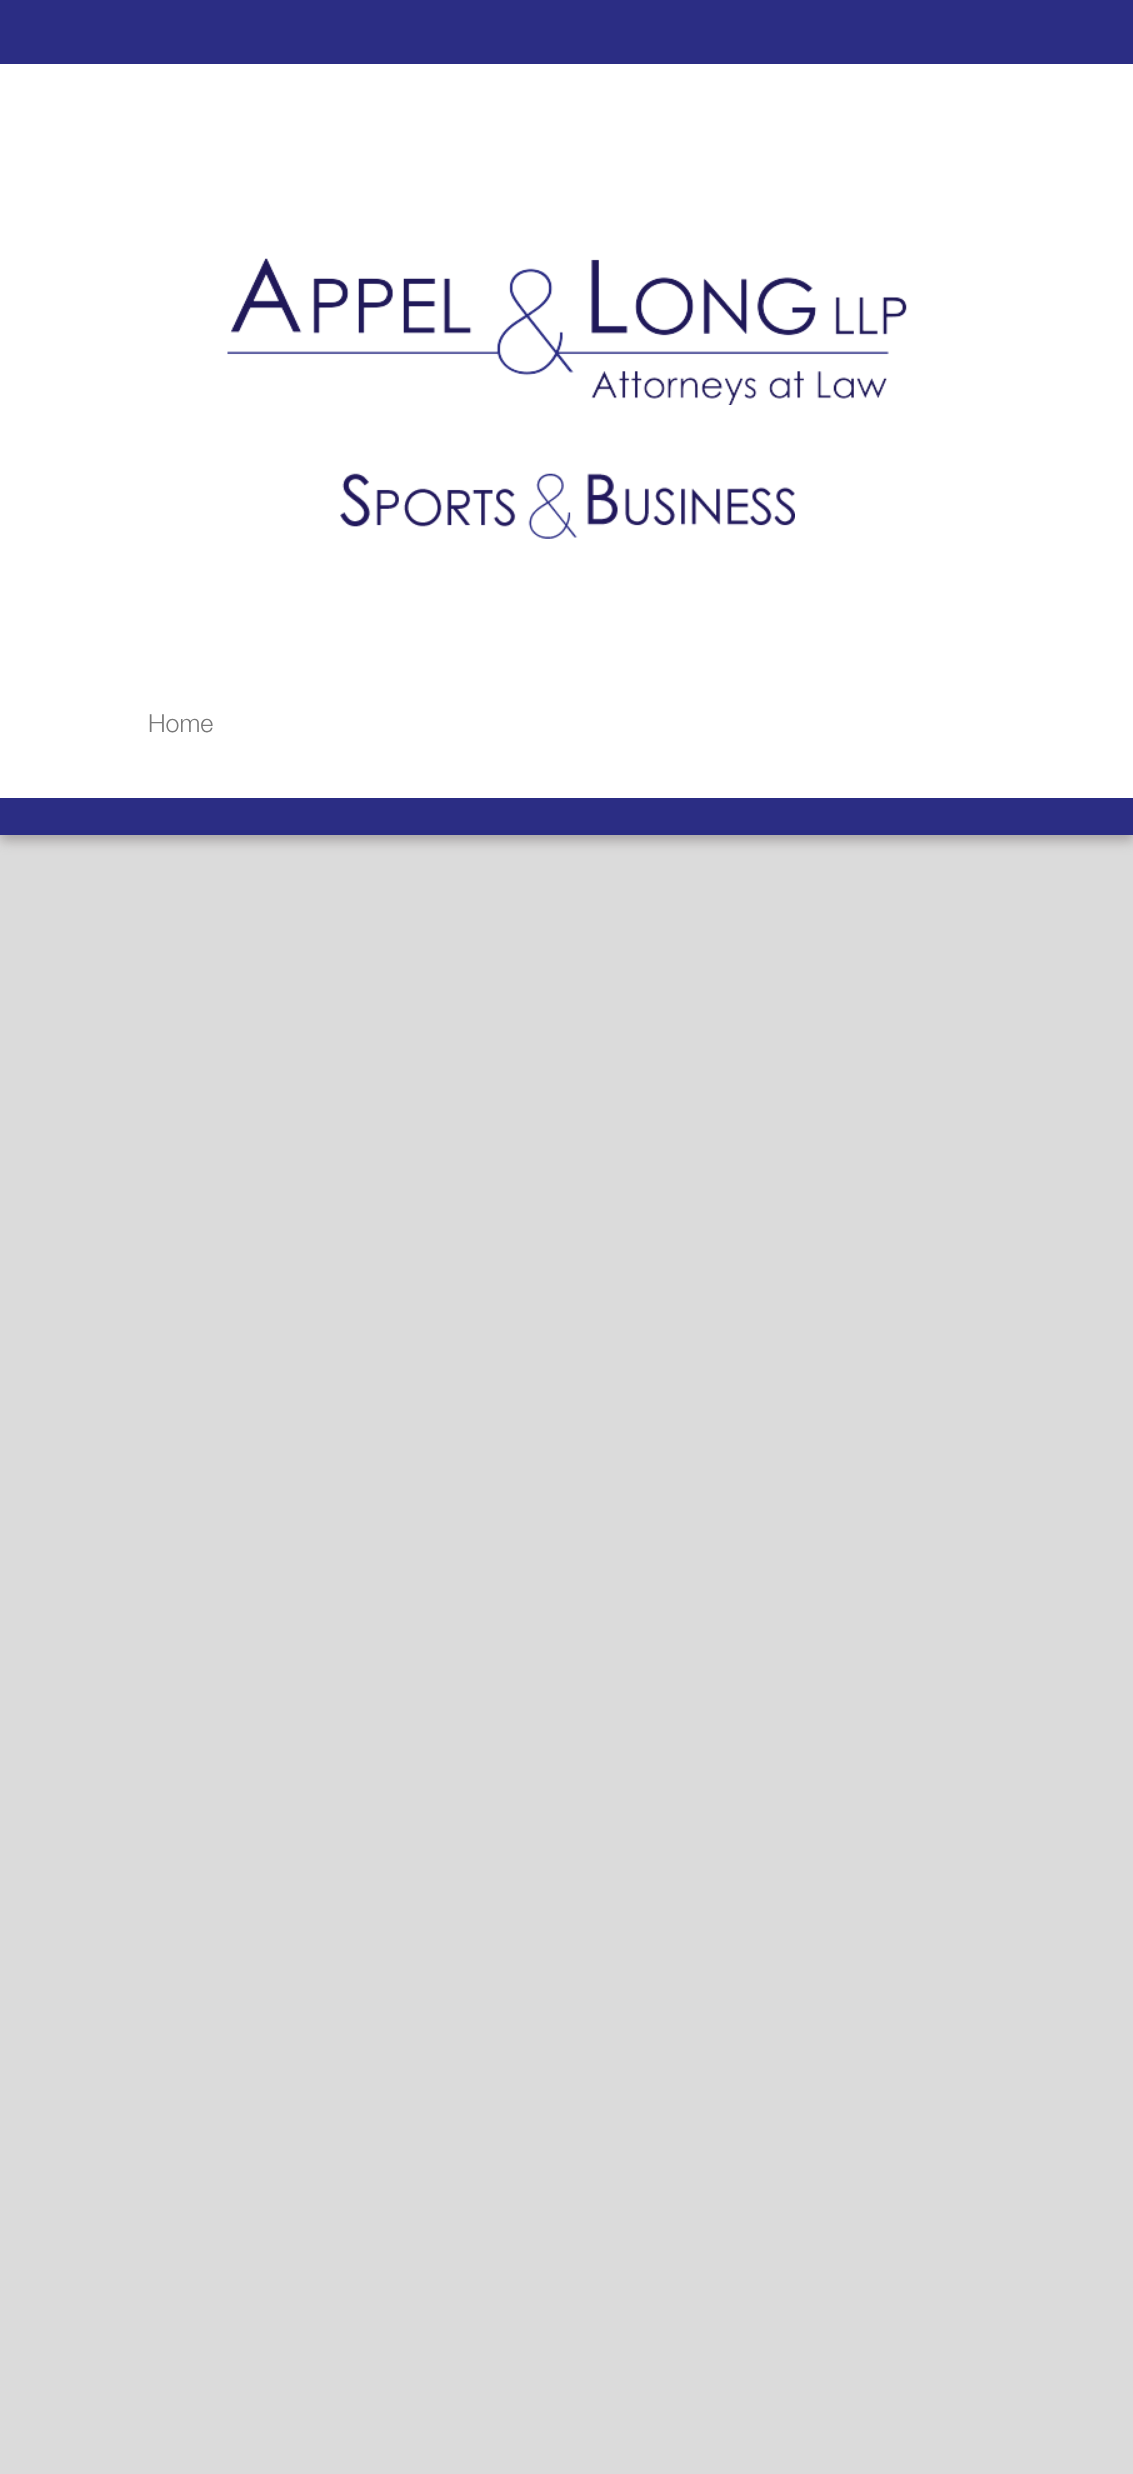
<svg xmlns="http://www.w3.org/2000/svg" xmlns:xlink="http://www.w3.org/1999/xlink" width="1133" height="2474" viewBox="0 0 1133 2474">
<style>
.cls-1{font:300 25px Helvetica Neue;fill:#797979}
</style>
<rect width="100%" height="100%" fill="#dbdbdb"/>
<rect fill="#a9a5a5" filter="blur(6px)" x="0" y="6" width="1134" height="835"/>
<rect fill="#ffffff" x="0" y="64" width="1133" height="734"/>
<rect fill="#2b2d84" x="0" y="0" width="1133" height="64"/>
<image xlink:href="image0.png" x="227" y="258" width="680" height="147"/>
<image xlink:href="image1.png" x="340" y="473" width="455" height="66"/>
<rect fill="#2b2d84" x="0" y="798" width="1133" height="37"/>
<text class="cls-1" x="148" y="732">Home</text>
</svg>
